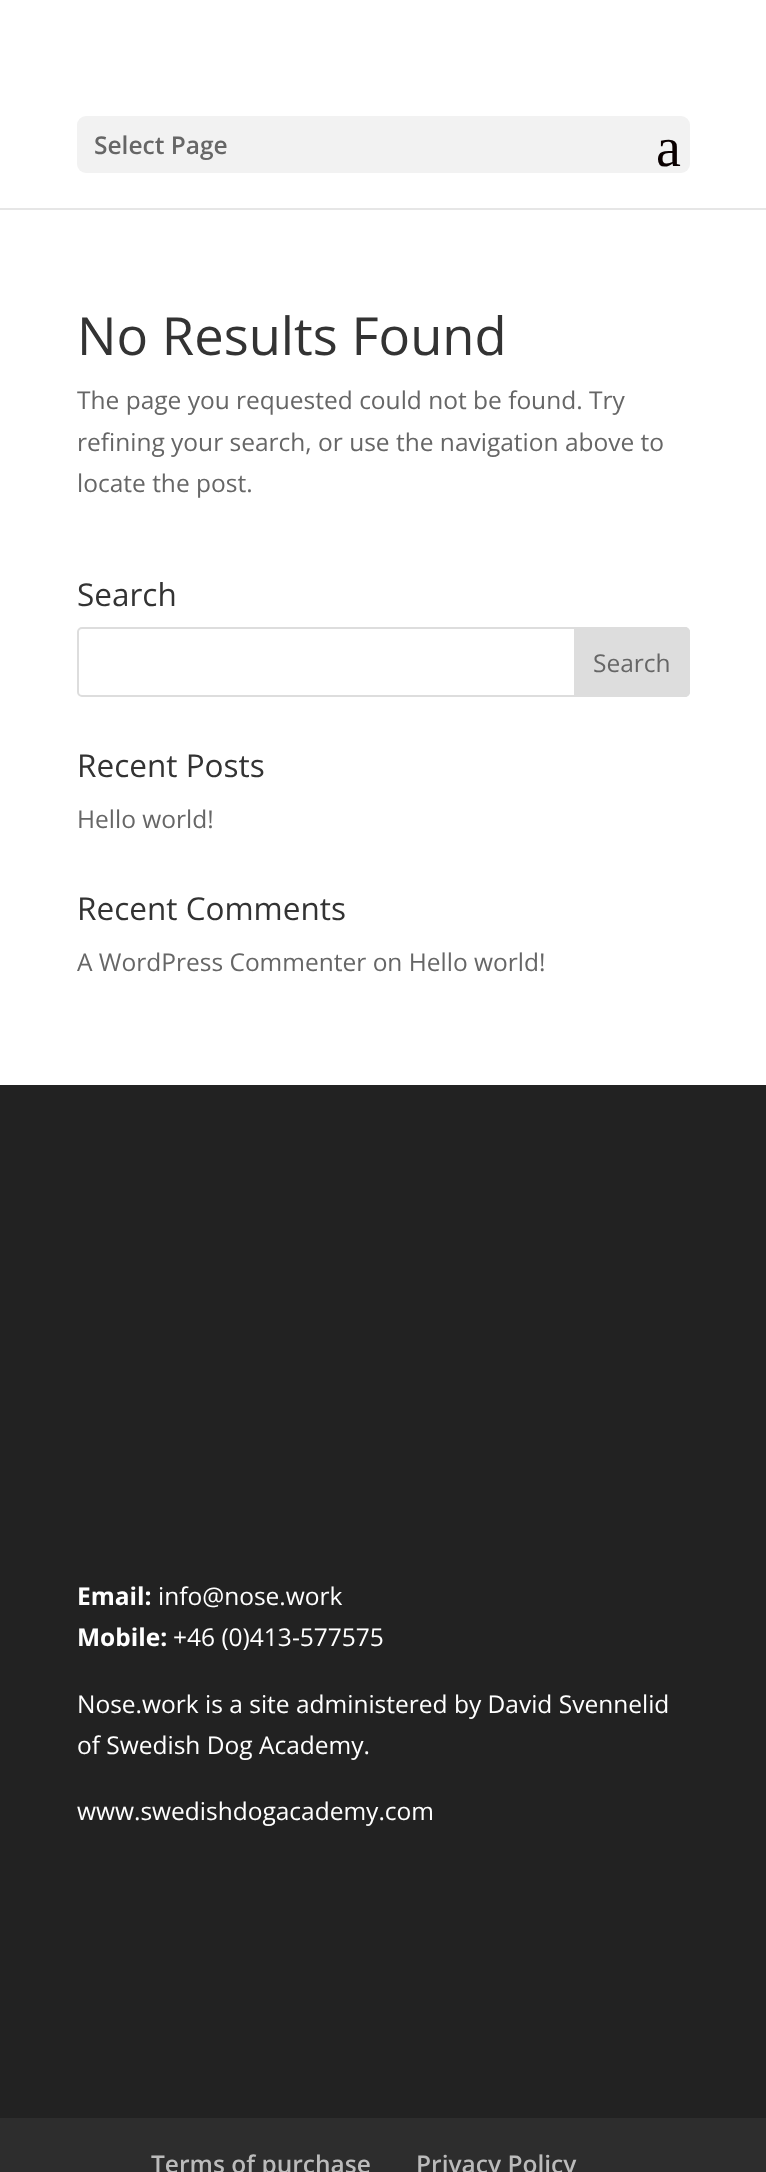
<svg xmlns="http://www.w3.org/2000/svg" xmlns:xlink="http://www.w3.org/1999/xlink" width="766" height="2172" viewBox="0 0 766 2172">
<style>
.cls-1{font:600 24.5px Open Sans;fill:#666666}
.cls-2{font:56px Liberation Serif;fill:#0a0000}
.cls-3{font:52.5px Open Sans;fill:#333333}
.cls-4{font:24.5px Open Sans;fill:#666666}
.cls-5{font:31.5px Open Sans;fill:#333333}
.cls-6{font:bold 24.5px Open Sans;fill:#ffffff}
.cls-7{font:24.5px Open Sans;fill:#ffffff}
.cls-8{font:600 24.5px Open Sans;fill:#bbbbbb}
</style>
<rect width="100%" height="100%" fill="#ffffff"/>
<path fill="#e6e6e6" d="M0 208V210H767V2H766V208Z"/>
<rect fill="#f2f2f2" x="77" y="116" width="613" height="57" rx="9"/>
<rect fill="none" stroke="#dddddd" stroke-width="2" x="78" y="628" width="611" height="68" rx="4"/>
<path fill="#dddddd" stroke="#dddddd" stroke-width="2" d="M575 628H685C687 628 689 630 689 632V692C689 694 687 696 685 696H575Z"/>
<rect fill="#222222" x="0" y="1085" width="766" height="1033"/>
<rect fill="#2d2d2d" x="0" y="2118" width="766" height="54"/>
<text class="cls-1" x="94" y="154">Select Page</text>
<text class="cls-2" x="656" y="166">a</text>
<text class="cls-3" x="77" y="355">No Results Found</text>
<text class="cls-4"><tspan x="77" y="409">The page you requested could not be found. Try</tspan><tspan x="77" y="451">refining your search, or use the navigation above to</tspan><tspan x="77" y="492">locate the post.</tspan></text>
<text class="cls-5" x="77" y="606">Search</text>
<text class="cls-4" x="593" y="672">Search</text>
<text class="cls-5" x="77" y="777">Recent Posts</text>
<text class="cls-4" x="77" y="828">Hello world!</text>
<text class="cls-5" x="77" y="920">Recent Comments</text>
<text class="cls-4" x="77" y="971">A WordPress Commenter on Hello world!</text>
<text class="cls-6" x="77" y="1605">Email:</text>
<text class="cls-7" x="158" y="1605">info@nose.work</text>
<text class="cls-6" x="77" y="1646">Mobile:</text>
<text class="cls-7" x="173" y="1646">+46 (0)413-577575</text>
<text class="cls-7"><tspan x="77" y="1713">Nose.work is a site administered by David Svennelid</tspan><tspan x="77" y="1754">of Swedish Dog Academy.</tspan></text>
<text class="cls-7" x="77" y="1820">www.swedishdogacademy.com</text>
<text class="cls-8" x="151" y="2173">Terms of purchase</text>
<text class="cls-8" x="416" y="2173">Privacy Policy</text>
</svg>
